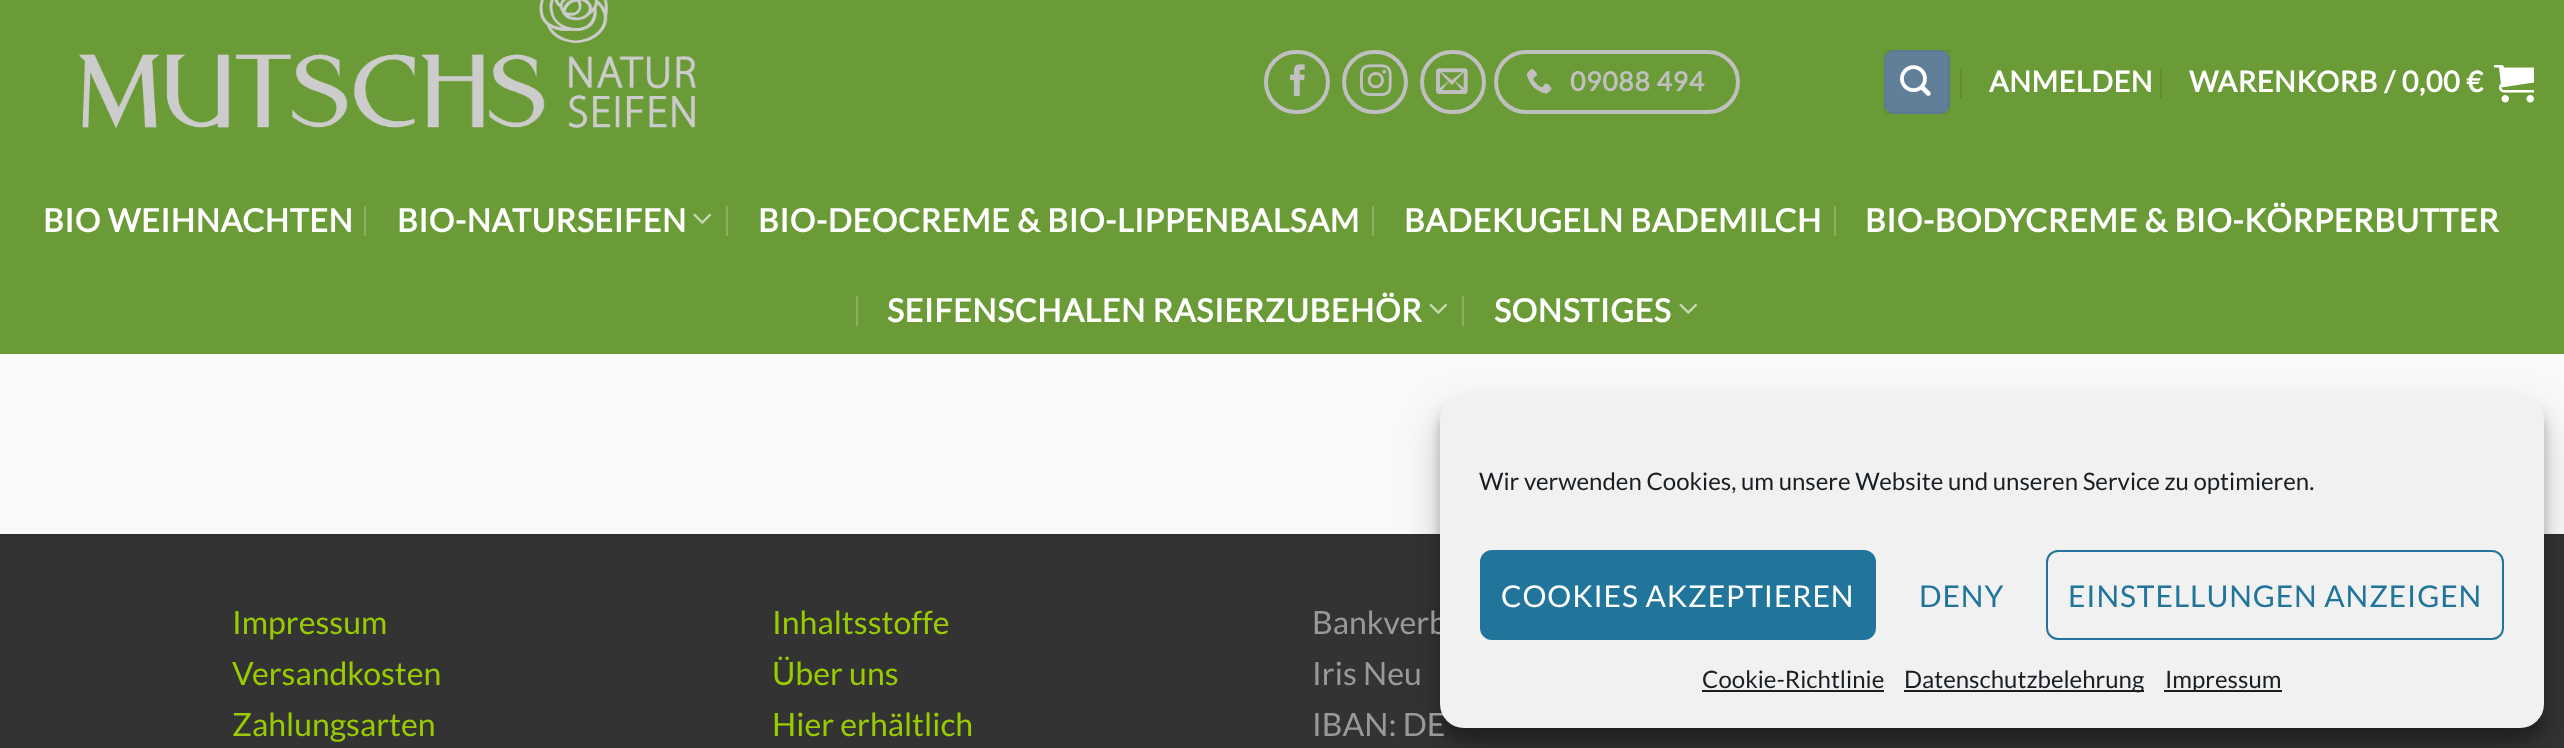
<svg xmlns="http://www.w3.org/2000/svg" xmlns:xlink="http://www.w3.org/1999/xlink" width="2564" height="748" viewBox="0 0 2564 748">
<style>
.cls-1{font:bold 26.5px Lato;letter-spacing:0.75px;fill:#c0c0c0}
.cls-2{font:bold 28.75px Lato;letter-spacing:0.6px;fill:#ffffff}
.cls-3{font:bold 32px Lato;letter-spacing:0.65px;fill:#ffffff}
.cls-4{font:32px Lato;fill:#99cc00}
.cls-5{font:32px Lato;fill:#999999}
.cls-6{font:24px Lato;fill:#191e23}
.cls-7{font:30px Lato;letter-spacing:0.9px;fill:#ffffff}
.cls-8{font:30px Lato;letter-spacing:0.9px;fill:#21759b}
</style>
<rect width="100%" height="100%" fill="#f9f9f9"/>
<rect fill="#6b9b37" x="0" y="0" width="2564" height="354"/>
<image xlink:href="image0.png" x="79" y="0" width="617" height="129"/>
<rect fill="none" stroke="#c0c0c0" stroke-width="4" x="1266" y="52" width="62" height="60" rx="30"/>
<image xlink:href="image1.png" x="1289" y="64" width="16" height="32"/>
<rect fill="none" stroke="#c0c0c0" stroke-width="4" x="1344" y="52" width="62" height="60" rx="30"/>
<image xlink:href="image2.png" x="1360" y="64" width="32" height="32"/>
<rect fill="none" stroke="#c0c0c0" stroke-width="4" x="1422" y="52" width="62" height="60" rx="30"/>
<image xlink:href="image3.png" x="1436" y="68" width="32" height="26"/>
<rect fill="none" stroke="#c0c0c0" stroke-width="4" x="1496" y="52" width="242" height="60" rx="30"/>
<image xlink:href="image4.png" x="1526" y="69" width="26" height="25"/>
<rect fill="#627f9a" x="1884" y="50" width="66" height="64" rx="10"/>
<rect fill="none" stroke="#000000" stroke-opacity="0.05" stroke-width="2" x="1885" y="51" width="64" height="62"/>
<image xlink:href="image5.png" x="1900" y="65" width="31" height="31"/>
<rect fill="#608c32" x="1960" y="68" width="2" height="30"/>
<rect fill="#608c32" x="2160" y="68" width="2" height="30"/>
<image xlink:href="image6.png" x="2494" y="65" width="40" height="38"/>
<rect fill="#89af5f" x="364" y="206" width="2" height="30"/>
<image xlink:href="image7.png" x="693" y="213" width="19" height="11"/>
<rect fill="#89af5f" x="726" y="206" width="2" height="30"/>
<rect fill="#89af5f" x="1372" y="206" width="2" height="30"/>
<rect fill="#89af5f" x="1834" y="206" width="2" height="30"/>
<rect fill="#89af5f" x="856" y="296" width="2" height="30"/>
<image xlink:href="image7.png" x="1429" y="303" width="19" height="11"/>
<rect fill="#89af5f" x="1462" y="296" width="2" height="30"/>
<image xlink:href="image7.png" x="1679" y="303" width="19" height="11"/>
<rect fill="#333333" x="0" y="536" width="2564" height="212"/>
<rect fill="#303030" x="0" y="534" width="2564" height="2"/>
<rect fill="#000000" fill-opacity="0.23" filter="blur(6px)" x="1440" y="406" width="1104" height="334" rx="24"/>
<rect fill="#000000" fill-opacity="0.19" filter="blur(20px)" x="1440" y="414" width="1104" height="334" rx="24"/>
<text class="cls-1" x="1570" y="91">09088 494</text>
<text class="cls-2" x="1989" y="92">ANMELDEN</text>
<text class="cls-2" x="2189" y="92">WARENKORB / 0,00 €</text>
<text class="cls-3" x="43" y="232">BIO WEIHNACHTEN</text>
<text class="cls-3" x="397" y="232">BIO-NATURSEIFEN</text>
<text class="cls-3" x="758" y="232">BIO-DEOCREME &amp; BIO-LIPPENBALSAM</text>
<text class="cls-3" x="1404" y="232">BADEKUGELN BADEMILCH</text>
<text class="cls-3" x="1865" y="232">BIO-BODYCREME &amp; BIO-KÖRPERBUTTER</text>
<text class="cls-3" x="887" y="322">SEIFENSCHALEN RASIERZUBEHÖR</text>
<text class="cls-3" x="1494" y="322">SONSTIGES</text>
<text class="cls-4"><tspan x="232" y="634">Impressum</tspan><tspan x="232" y="685">Versandkosten</tspan><tspan x="232" y="736">Zahlungsarten</tspan></text>
<text class="cls-4"><tspan x="772" y="634">Inhaltsstoffe</tspan><tspan x="772" y="685">Über uns</tspan><tspan x="772" y="736">Hier erhältlich</tspan></text>
<text class="cls-5"><tspan x="1312" y="634">Bankverb</tspan><tspan x="1312" y="685">Iris Neu</tspan><tspan x="1312" y="736">IBAN: DE</tspan></text>
<rect fill="#f1f1f1" x="1440" y="394" width="1104" height="334" rx="24"/>
<text class="cls-6" x="1479" y="490">Wir verwenden Cookies, um unsere Website und unseren Service zu optimieren.</text>
<rect fill="#21759b" stroke="#21759b" stroke-width="2" x="1481" y="551" width="394" height="88" rx="11"/>
<text class="cls-7" x="1501" y="607">COOKIES AKZEPTIEREN</text>
<text class="cls-8" x="1919" y="607">DENY</text>
<rect fill="none" stroke="#21759b" stroke-width="2" x="2047" y="551" width="456" height="88" rx="11"/>
<text class="cls-8" x="2068" y="607">EINSTELLUNGEN ANZEIGEN</text>
<text class="cls-6" x="1702" y="688">Cookie-Richtlinie</text>
<rect fill="#191e23" x="1702" y="690" width="182" height="2"/>
<rect fill="#191e23" x="1904" y="690" width="240" height="2"/>
<text class="cls-6" x="1904" y="688">Datenschutzbelehrung</text>
<rect fill="#191e23" x="2164" y="690" width="118" height="2"/>
<text class="cls-6" x="2165" y="688">Impressum</text>
</svg>
